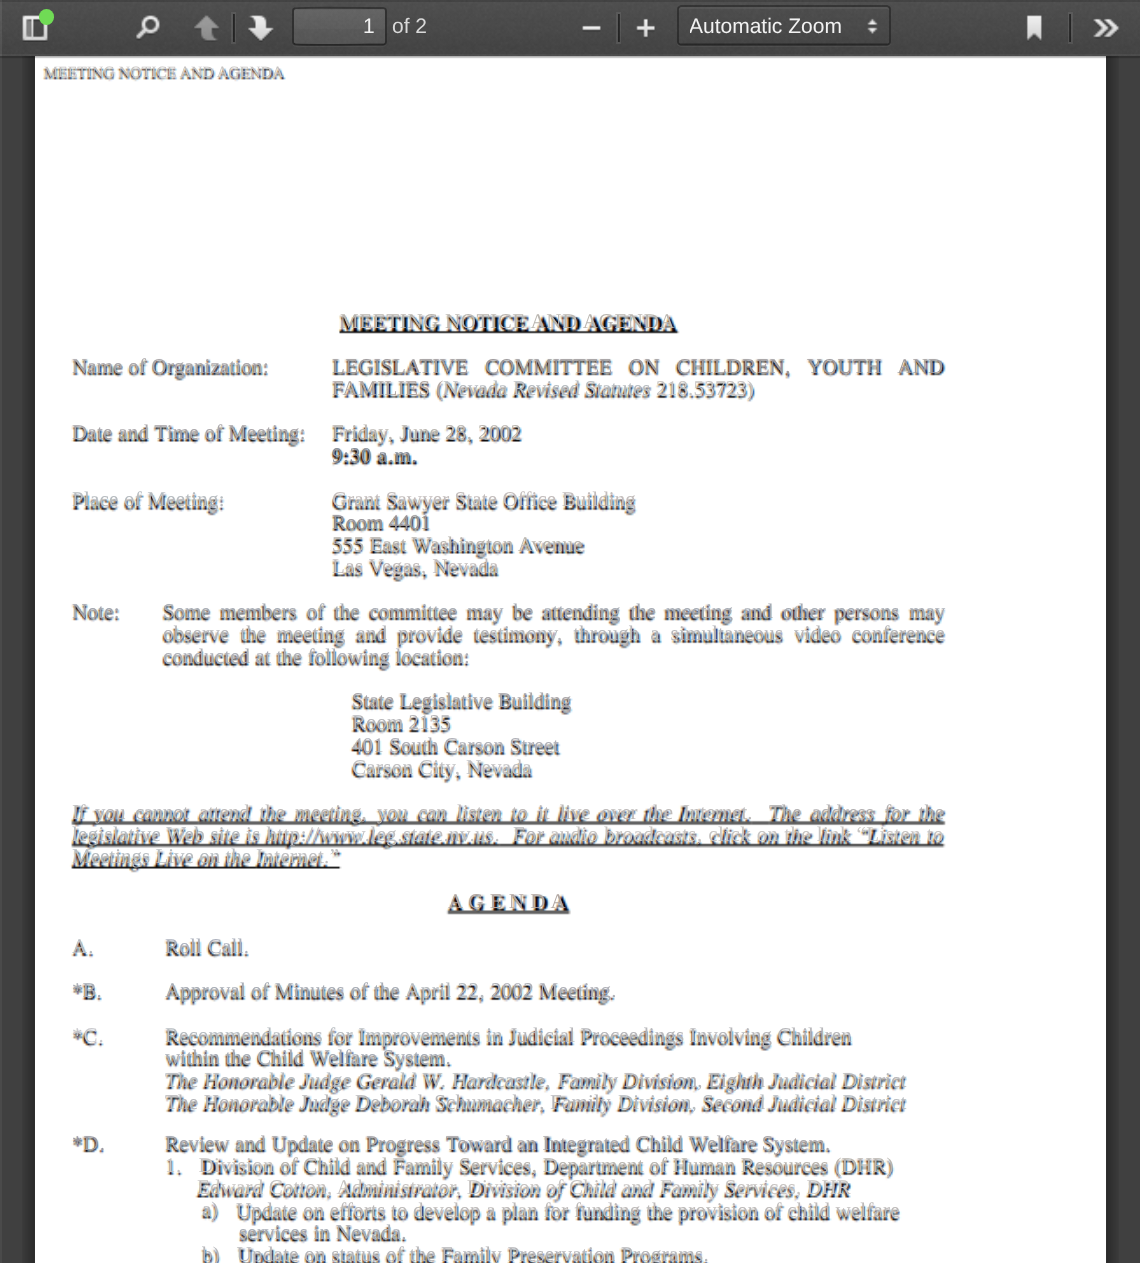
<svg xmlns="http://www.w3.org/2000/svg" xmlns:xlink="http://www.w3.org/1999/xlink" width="1140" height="1263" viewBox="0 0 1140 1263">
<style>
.cls-1{font:21px Liberation Sans;fill:#f2f2f2}
.cls-2{font:21px Liberation Sans;fill:#d9d9d9}
.cls-3{font:15.75px Liberation Serif;fill:#c7c4c2}
.cls-4{font:21px Liberation Serif;letter-spacing:0.65px;fill:#bab6b0}
.cls-5{font:21px Liberation Serif;letter-spacing:0.18px;fill:#aaa7aa}
.cls-6{font:21px Liberation Serif;letter-spacing:0.3px;fill:#9e9a9c}
.cls-7{font:21px Liberation Serif;letter-spacing:0.4px;fill:#b1a7a2}
.cls-8{font:21px Liberation Serif;letter-spacing:0.1px;fill:#b7bcc0}
.cls-9{font:21px Liberation Serif;letter-spacing:-0.13px;fill:#b7bcc0}
.cls-10{font:21px Liberation Serif;letter-spacing:0.2px;fill:#c7c4c2}
.cls-11{font:21px Liberation Serif;letter-spacing:0.25px;fill:#aaa7aa}
.cls-12{font:21px Liberation Serif;letter-spacing:0.4px;fill:#bab6b0}
.cls-13{font:21px Liberation Serif;letter-spacing:0.75px;fill:#878e98}
.cls-14{font:21px Liberation Serif;letter-spacing:0.2px;fill:#b7bcc0}
.cls-15{font:21px Liberation Serif;letter-spacing:0.1px;fill:#c3bdbc}
.cls-16{font:21px Liberation Serif;fill:#989599}
.cls-17{font:21px Liberation Serif;letter-spacing:0.2px;fill:#bab6b0}
.cls-18{font:21px Liberation Serif;letter-spacing:0.4px;fill:#c3bdbc}
.cls-19{font:21px Liberation Serif;letter-spacing:0.25px;fill:#a2a5ae}
.cls-20{font:21px Liberation Serif;letter-spacing:-0.13px;fill:#a7acb4}
.cls-21{font:21px Liberation Serif;letter-spacing:0.15px;fill:#b7b7ba}
.cls-22{font:21px Liberation Serif;letter-spacing:0.1px;fill:#b7b7ba}
.cls-23{font:21px Liberation Serif;letter-spacing:0.1px;fill:#afb0b7}
.cls-24{font:21px Liberation Serif;fill:#aaa7aa}
.cls-25{font:21px Liberation Serif;fill:#b7b7ba}
.cls-26{font:21px Liberation Serif;letter-spacing:0.3px;fill:#c0c0c2}
.cls-27{font:21px Liberation Serif;letter-spacing:-0.4px;fill:#b7b7ba}
.cls-28{font:21px Liberation Serif;letter-spacing:-0.15px;fill:#bdbab9}
.cls-29{font:21px Liberation Serif;letter-spacing:-0.1px;fill:#b1afb0}
.cls-30{font:21px Liberation Serif;letter-spacing:0.25px;fill:#b7bcc0}
.cls-31{font:21px Liberation Serif;letter-spacing:0.4px;fill:#c0c0c2}
.cls-32{font:21px Liberation Serif;letter-spacing:1px;fill:#b7b7ba}
.cls-33{font:21px Liberation Serif;letter-spacing:0.4px;fill:#c7c4c2}
.cls-34{font:21px Liberation Serif;fill:#b7bcc0}
.cls-35{font:21px Liberation Serif;letter-spacing:0.35px;fill:#c0c0c2}
.cls-36{font:21px Liberation Serif;letter-spacing:0.5px;fill:#b1a7a2}
.cls-37{font:21px Liberation Serif;letter-spacing:1px;fill:#b7bcc0}
.cls-38{font:21px Liberation Serif;letter-spacing:0.25px;fill:#adb2be}
.cls-39{font:21px Liberation Serif;fill:#a7acb4}
.cls-40{font:21px Liberation Serif;letter-spacing:0.2px;fill:#a7acb4}
.cls-41{font:21px Liberation Serif;letter-spacing:0.5px;fill:#b7bcc0}
.cls-42{font:21px Liberation Serif;letter-spacing:0.25px;fill:#afb0b7}
.cls-43{font:21px Liberation Serif;letter-spacing:1px;fill:#c9c9cd}
.cls-44{font:21px Liberation Serif;letter-spacing:0.35px;fill:#b7bcc0}
.cls-45{font:21px Liberation Serif;letter-spacing:0.2px;fill:#b7b7ba}
.cls-46{font:21px Liberation Serif;letter-spacing:0.15px;fill:#b7bcc0}
.cls-47{font:21px Liberation Serif;letter-spacing:1px;fill:#9b9ba3}
.cls-48{font:21px Liberation Serif;letter-spacing:0.1px;fill:#a2a5ae}
.cls-49{font:21px Liberation Serif;letter-spacing:0.17px;fill:#c7c4c2}
.cls-50{font:21px Liberation Serif;fill:#c7c4c2}
.cls-51{font:21px Liberation Serif;letter-spacing:0.17px;fill:#b7b7ba}
.cls-52{font:21px Liberation Serif;letter-spacing:0.18px;fill:#bdbab9}
.cls-53{font:21px Liberation Serif;letter-spacing:0.25px;fill:#b7b7ba}
</style>
<defs>
<clipPath id="clip1"><rect x="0" y="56" width="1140" height="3"/></clipPath>
<linearGradient id="g1" gradientUnits="userSpaceOnUse" x1="340" y1="9" x2="340" y2="44"><stop offset="0" stop-color="#ffffff" stop-opacity="0.05"/><stop offset="1" stop-color="#ffffff" stop-opacity="0"/></linearGradient>
<clipPath id="clip2"><rect x="690" y="12" width="206" height="28"/></clipPath>
</defs>
<rect width="100%" height="100%" fill="#404040"/>
<rect fill="#4a4a4a" x="0" y="56" width="2" height="1207"/>
<rect fill="#ffffff" x="35" y="56" width="1071" height="1"/>
<image xlink:href="image10.png" x="22" y="56" width="1097" height="1207"/>
<image xlink:href="image11.png" x="35" y="56" width="1071" height="1207"/>
<g clip-path="url(#clip1)">
<rect fill="#000000" fill-opacity="0.1" filter="blur(1px)" x="0" y="2" width="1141" height="56"/>
</g>
<rect fill="#000000" fill-opacity="0.15" x="0" y="56" width="1140" height="2"/>
<image xlink:href="image0.png" x="0" y="0" width="1140" height="56"/>
<rect fill="#ffffff" fill-opacity="0.05" x="0" y="54" width="1140" height="2"/>
<rect fill="#000000" fill-opacity="0.15" x="0" y="0" width="1140" height="2"/>
<rect fill="#ffffff" fill-opacity="0.08" x="0" y="0" width="2" height="56"/>
<image xlink:href="image1.png" x="22" y="15" width="26" height="27"/>
<rect fill="#70db55" x="39" y="9" width="15" height="16" rx="7.5"/>
<image xlink:href="image2.png" x="136" y="15" width="24" height="26"/>
<image xlink:href="image3.png" x="194" y="15" width="26" height="27"/>
<rect fill="none" stroke="#ffffff" stroke-opacity="0.08" stroke-width="2" x="232" y="13" width="3" height="30"/>
<rect fill="#000000" fill-opacity="0.5" x="233" y="14" width="2" height="28"/>
<image xlink:href="image4.png" x="248" y="15" width="26" height="27"/>
<path fill="#ffffff" fill-opacity="0.05" d="M292 12V33C292 50 291 47 310 47H368C388 47 387 50 387 33V12V42C387 44 385 46 383 46H296C294 46 292 44 292 42Z"/>
<rect fill="#ffffff" fill-opacity="0.09" x="294" y="9" width="91" height="35" rx="2"/>
<rect fill="url(#g1)" x="294" y="9" width="91" height="20"/>
<path fill="#000000" fill-opacity="0.05" d="M296 10H383C384 10 385 11 385 12C385 11 385 9 383 9H310C308 9 294 5 294 12C294 11 295 10 296 10Z"/>
<path fill="none" stroke="#000000" stroke-opacity="0.32" stroke-width="1.8" d="M294 8.5H294.5C296 7 361 8 368.5 8H383L385 8.5"/>
<path fill="none" stroke="#000000" stroke-opacity="0.38" stroke-width="1.8" d="M385 8.5C385.5 9 386 10 386 10.5V42C386 42.5 385.5 43.5 385 44"/>
<path fill="none" stroke="#000000" stroke-opacity="0.42" stroke-width="1.8" d="M385 44L383 44.5H368.5C361 44.5 296 45.5 294.5 44H294"/>
<path fill="none" stroke="#000000" stroke-opacity="0.38" stroke-width="1.8" d="M294 44C293.5 43.5 293 42.5 293 42V10.5C293 10 293.5 9 294 8.5"/>
<image xlink:href="image5.png" x="582" y="25" width="19" height="7"/>
<rect fill="none" stroke="#ffffff" stroke-opacity="0.08" stroke-width="2" x="617" y="13" width="3" height="30"/>
<rect fill="#000000" fill-opacity="0.5" x="618" y="14" width="2" height="28"/>
<image xlink:href="image6.png" x="636" y="18" width="19" height="21"/>
<path fill="#ffffff" fill-opacity="0.05" d="M677 10V43C677 45 679 47 681 47H887C889 47 891 45 891 43V10V42C891 44 889 46 887 46H681C679 46 677 44 677 42Z"/>
<image xlink:href="image7.png" x="867" y="18" width="11" height="16"/>
<path fill="#ffffff" fill-opacity="0.05" d="M681 9H887L889 10C889 9 889 7 887 7H681C679 7 679 9 679 10Z"/>
<path fill="none" stroke="#000000" stroke-opacity="0.32" stroke-width="1.8" d="M679 7L681 6H887L889 7"/>
<path fill="none" stroke="#000000" stroke-opacity="0.38" stroke-width="1.8" d="M889 7C889.5 7.5 890 8 890 9V42C890 42.5 889.5 43.5 889 44"/>
<path fill="none" stroke="#000000" stroke-opacity="0.42" stroke-width="1.8" d="M889 44L887 44.5H681L679 44"/>
<path fill="none" stroke="#000000" stroke-opacity="0.38" stroke-width="1.8" d="M679 44C678.5 43.5 678 42.5 678 42V9C678 8 678.5 7.5 679 7"/>
<image xlink:href="image8.png" x="1026" y="15" width="16" height="27"/>
<rect fill="none" stroke="#ffffff" stroke-opacity="0.08" stroke-width="2" x="1069" y="13" width="3" height="30"/>
<rect fill="#000000" fill-opacity="0.5" x="1069" y="14" width="2" height="28"/>
<image xlink:href="image9.png" x="1093" y="18" width="27" height="21"/>
<text class="cls-1" x="363" y="33">1</text>
<text class="cls-2" x="392" y="33">of 2</text>
<g clip-path="url(#clip2)">
<text class="cls-1" x="689" y="33">Automatic Zoom</text>
</g>
<text class="cls-3" x="44" y="77">MEETING NOTICE AND AGENDA</text>
<text class="cls-4" x="340" y="328">MEETING NOTICE AND AGENDA</text>
<text class="cls-5" x="72" y="373">Name of Organization:</text>
<text class="cls-6" xml:space="preserve" x="332" y="373">LEGISLATIVE   COMMITTEE   ON   CHILDREN,   YOUTH   AND</text>
<text class="cls-7" x="332" y="395">FAMILIES (</text>
<text class="cls-8" x="443" y="395">Nevada</text>
<text class="cls-9" x="513" y="395">Revised Statutes</text>
<text class="cls-10" x="656" y="395">218.53723)</text>
<text class="cls-11" x="72" y="439">Date and Time of Meeting:</text>
<text class="cls-12" x="332" y="439">Friday, June 28, 2002</text>
<text class="cls-13" x="332" y="462">9:30 a.m.</text>
<text class="cls-14" x="72" y="506">Place of Meeting:</text>
<text class="cls-15" x="332" y="506">Grant Sawyer State Office Building</text>
<text class="cls-16" x="332" y="529">Room 4401</text>
<text class="cls-17" x="332" y="551">555 East Washington Avenue</text>
<text class="cls-18" x="332" y="573">Las Vegas, Nevada</text>
<text class="cls-19" x="72" y="618">Note:</text>
<text class="cls-20" xml:space="preserve" x="163" y="618">Some  members  of  the  committee  may  be  attending  the  meeting  and  other  persons  may</text>
<text class="cls-21" xml:space="preserve" x="163" y="640">observe  the  meeting  and  provide  testimony,  through  a  simultaneous</text>
<text class="cls-22" xml:space="preserve" x="794" y="640">video  conference</text>
<text class="cls-23" x="163" y="663">conducted at the following location:</text>
<text class="cls-24" x="352" y="707">State Legislative Building</text>
<text class="cls-25" x="352" y="729">Room 2135</text>
<text class="cls-23" x="352" y="752">401 South Carson Street</text>
<text class="cls-26" x="352" y="774">Carson City, Nevada</text>
<text class="cls-27" xml:space="preserve" x="72" y="819">If  you  cannot</text>
<text class="cls-28" xml:space="preserve" x="199" y="819">attend  the  meeting,  you  can  listen  to  it  live  over  the  Internet.</text>
<text class="cls-29" xml:space="preserve" x="769" y="819">The  address  for  the</text>
<text class="cls-30" x="72" y="841">legislative Web site</text>
<text class="cls-31" x="246" y="841">is http://www.leg.state.nv.us.</text>
<text class="cls-32" x="513" y="841">For</text>
<text class="cls-33" x="550" y="841">audio broadcasts, click on the link “Listen to</text>
<text class="cls-34" x="72" y="863">Meetings Live on the</text>
<text class="cls-35" x="256" y="863">Internet.”</text>
<text class="cls-36" x="448" y="908">A G E N D A</text>
<text class="cls-37" x="72" y="953">A.</text>
<text class="cls-38" x="165" y="953">Roll Call.</text>
<text class="cls-39" x="72" y="997">*B.</text>
<text class="cls-40" x="165" y="997">Approval of Minutes of the</text>
<text class="cls-41" x="405" y="997">April 22,</text>
<text class="cls-42" x="491" y="997">2002 Meeting.</text>
<text class="cls-43" x="72" y="1042">*C.</text>
<text class="cls-8" x="165" y="1042">Recommendations for Improvements in</text>
<text class="cls-22" x="509" y="1042">Judicial Proceedings Involving Children</text>
<text class="cls-40" x="165" y="1064">within the Child Welfare System.</text>
<text class="cls-44" x="165" y="1087">The Honorable Judge Gerald W. Hardcastle,</text>
<text class="cls-21" x="558" y="1087">Family Division, Eighth Judicial District</text>
<text class="cls-45" x="165" y="1109">The Honorable Judge Deborah Schumacher, Family</text>
<text class="cls-46" x="618" y="1109">Division, Second Judicial District</text>
<text class="cls-47" x="72" y="1150">*D.</text>
<text class="cls-48" x="165" y="1150">Review</text>
<text class="cls-11" x="235" y="1150">and Update on Progress Toward an Integrated Child Welfare System.</text>
<text class="cls-33" xml:space="preserve" x="165" y="1172">1.   Division</text>
<text class="cls-17" x="280" y="1172">of Child and Family Services, Department of Human Resources (DHR)</text>
<text class="cls-49" x="197" y="1194">Edward Cotton, Administrator, Division of Child and</text>
<text class="cls-50" x="660" y="1194">Family Services, DHR</text>
<text class="cls-25" x="202" y="1216">a)</text>
<text class="cls-51" x="236" y="1217">Update</text>
<text class="cls-52" x="303" y="1217">on efforts to develop a plan for funding the provision of child welfare</text>
<text class="cls-40" x="239" y="1239">services in Nevada.</text>
<text class="cls-53" xml:space="preserve" x="202" y="1261">b)   Update on status of the</text>
<text class="cls-53" x="441" y="1261">Family Preservation Programs.</text>
</svg>
